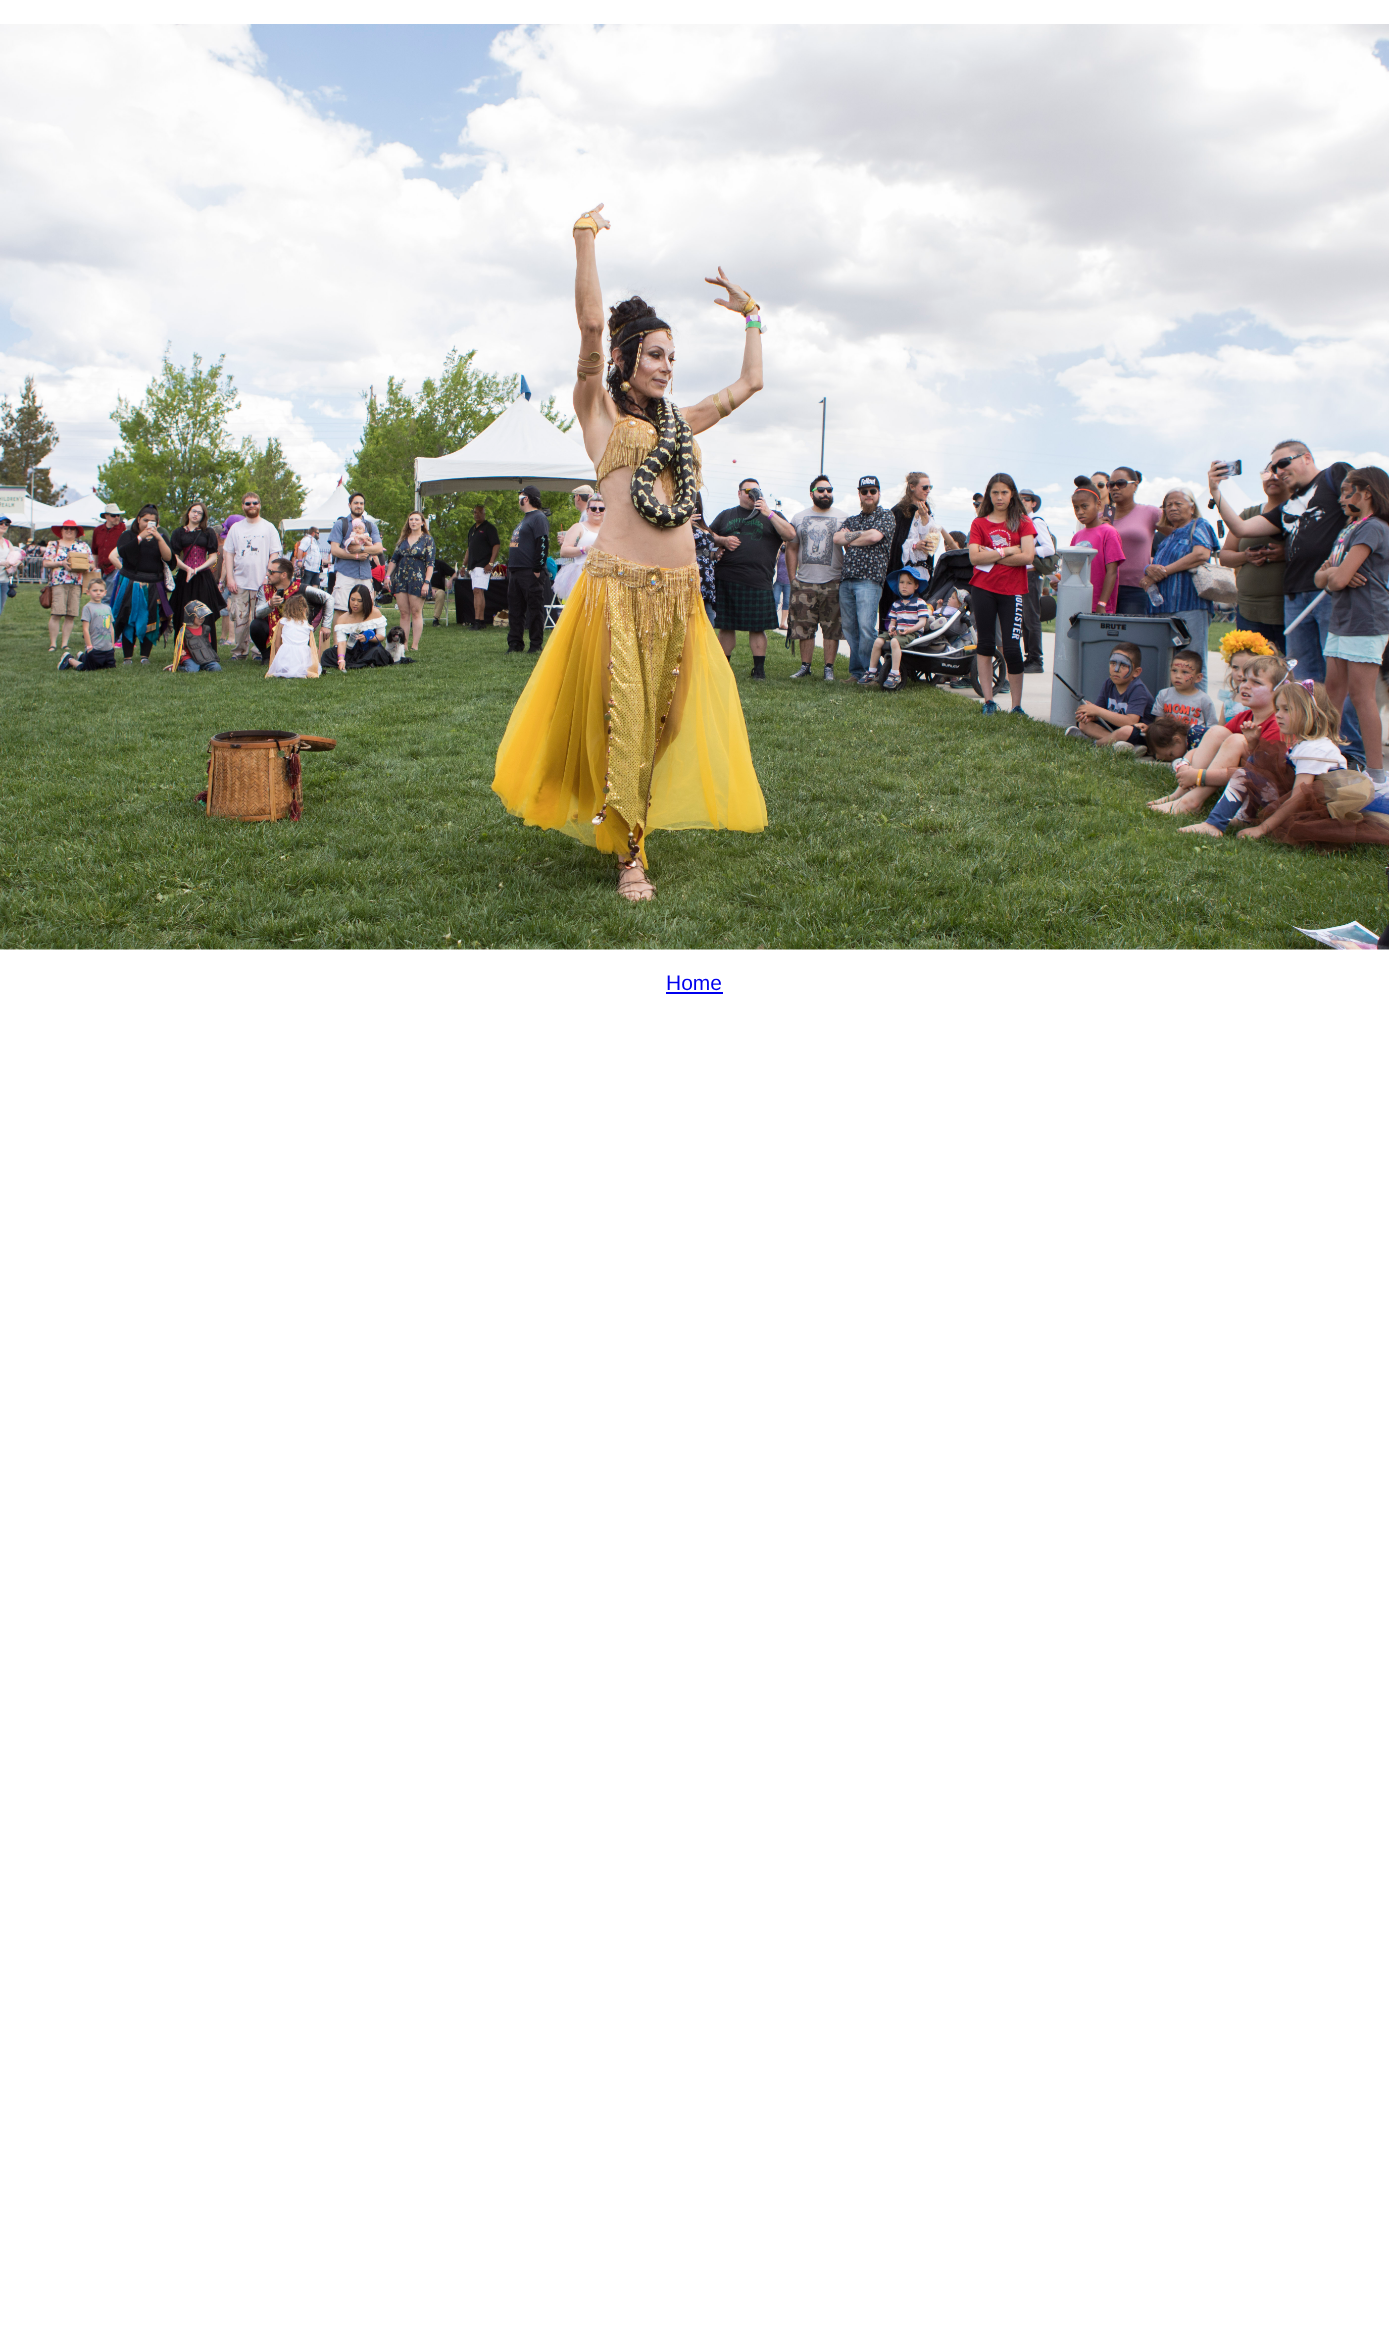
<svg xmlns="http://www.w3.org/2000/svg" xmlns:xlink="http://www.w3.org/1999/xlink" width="1389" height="2331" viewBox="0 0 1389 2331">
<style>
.cls-1{font:21px Liberation Sans;fill:#0000ee}
</style>
<rect width="100%" height="100%" fill="#ffffff"/>
<image xlink:href="image0.png" x="0" y="24" width="1389" height="926"/>
<rect fill="#0000ee" x="666" y="992" width="57" height="2"/>
<text class="cls-1" x="666" y="990">Home</text>
</svg>
